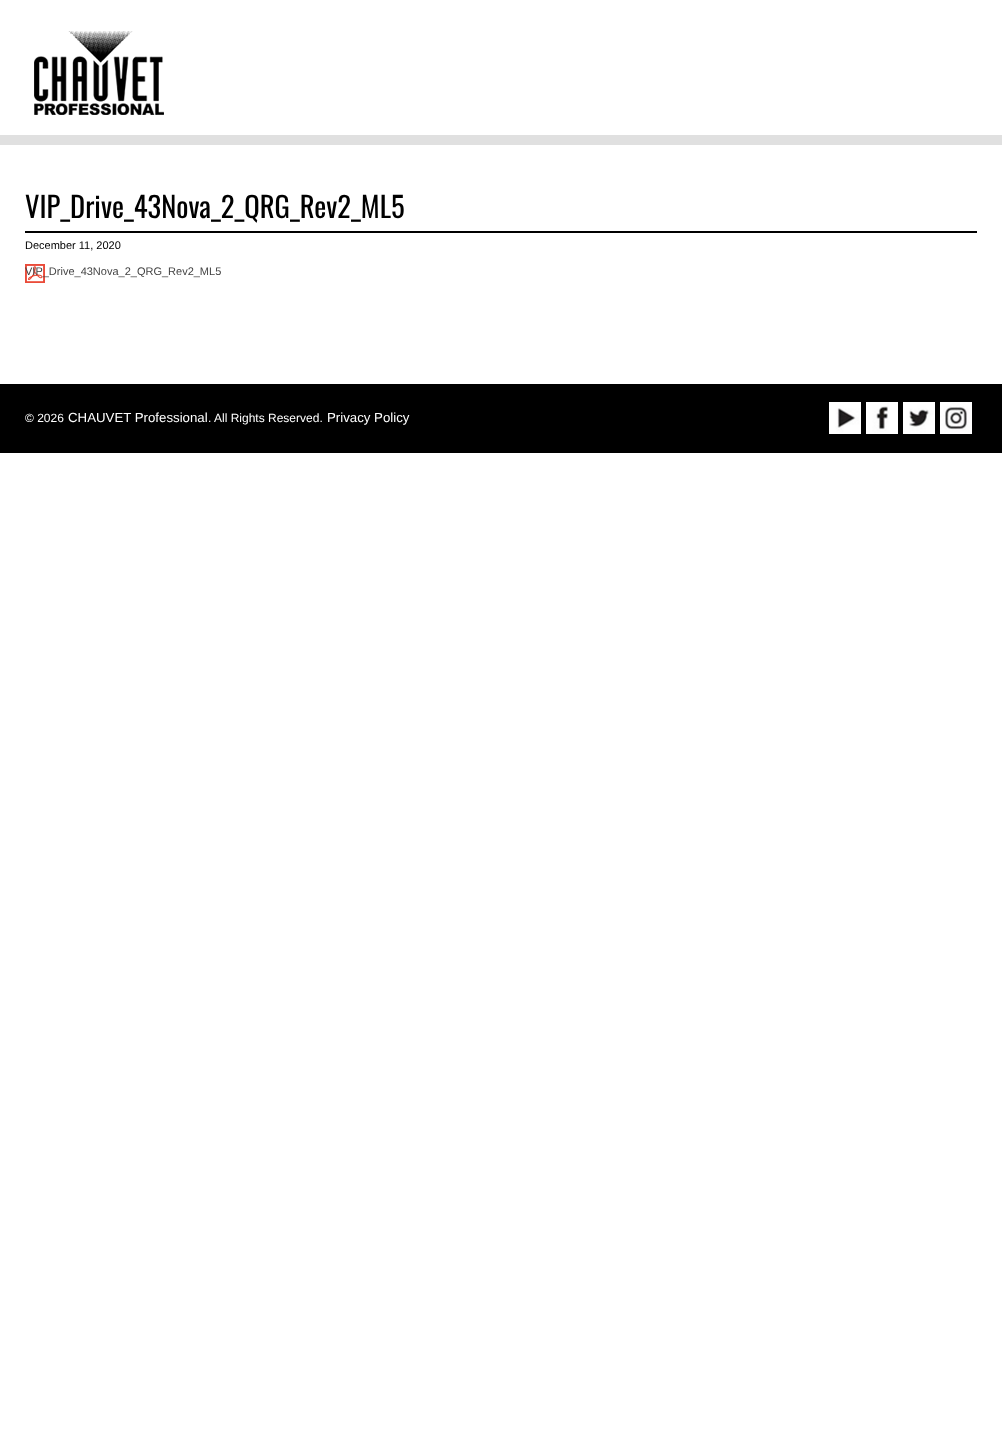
<svg xmlns="http://www.w3.org/2000/svg" xmlns:xlink="http://www.w3.org/1999/xlink" width="1002" height="1443" viewBox="0 0 1002 1443">
<style>
.cls-1{font:28.6px Oswald;fill:#000000}
.cls-2{font:11px Liberation Sans;fill:#000000}
.cls-3{font:11px Liberation Sans;fill:#444444}
.cls-4{font:12px Liberation Sans;fill:#ffffff}
.cls-5{font:13.25px Liberation Sans;fill:#ffffff}
</style>
<rect width="100%" height="100%" fill="#ffffff"/>
<rect fill="#e0e0e0" x="0" y="135" width="1002" height="10"/>
<image xlink:href="image0.png" x="34" y="31" width="130" height="84"/>
<rect fill="#000000" x="25" y="231" width="952" height="2"/>
<image xlink:href="image1.png" x="25" y="264" width="20" height="19"/>
<rect fill="#000000" x="0" y="384" width="1002" height="69"/>
<image xlink:href="image2.png" x="829" y="402" width="32" height="32"/>
<image xlink:href="image3.png" x="866" y="402" width="32" height="32"/>
<image xlink:href="image4.png" x="903" y="402" width="32" height="32"/>
<image xlink:href="image5.png" x="940" y="402" width="32" height="32"/>
<text class="cls-1" x="25" y="218">VIP_Drive_43Nova_2_QRG_Rev2_ML5</text>
<text class="cls-2" x="25" y="249">December 11, 2020</text>
<text class="cls-3" x="25" y="275">VIP_Drive_43Nova_2_QRG_Rev2_ML5</text>
<text class="cls-4" x="25" y="422">© 2026</text>
<text class="cls-5" x="68" y="422">CHAUVET Professional</text>
<text class="cls-4" x="208" y="422">. All Rights Reserved.</text>
<text class="cls-5" x="327" y="422">Privacy Policy</text>
</svg>
